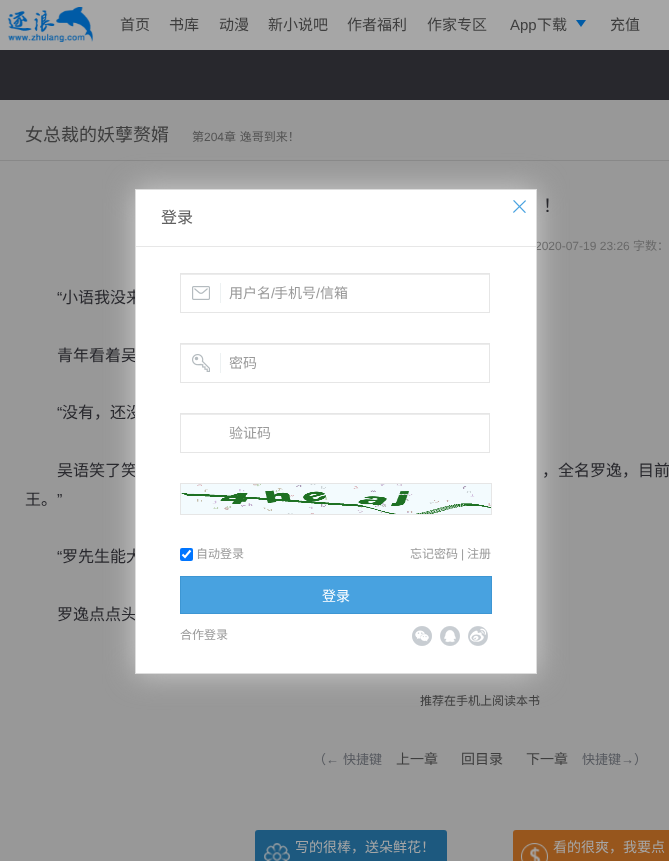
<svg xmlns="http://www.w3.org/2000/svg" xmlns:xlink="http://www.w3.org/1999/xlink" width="669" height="861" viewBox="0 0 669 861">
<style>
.cls-1{font:15px Noto Sans CJK SC;fill:#3e3e3e}
.cls-2{font:15px Liberation Sans;fill:#3e3e3e}
.cls-3{font:18px Noto Sans CJK SC;fill:#3e3e3e}
.cls-4{font:12px Noto Sans CJK SC;fill:#535353}
.cls-5{font:12px Liberation Sans;fill:#535353}
.cls-6{font:18px Noto Sans CJK SC;fill:#28282d}
.cls-7{font:12px Liberation Sans;fill:#696969}
.cls-8{font:12px Noto Sans CJK SC;fill:#696969}
.cls-9{font:16px Liberation Sans;fill:#28282d}
.cls-10{font:16px Noto Sans CJK SC;fill:#28282d}
.cls-11{font:12px Noto Sans CJK SC;fill:#3e3e3e}
.cls-12{font:13px Noto Sans CJK SC;fill:#56595f}
.cls-13{font:13px Liberation Sans;fill:#56595f}
.cls-14{font:14px Noto Sans CJK SC;fill:#3e3e3e}
.cls-15{font:14px Noto Sans CJK SC;fill:#a6a6a6}
.cls-16{font:16px Noto Sans CJK SC;fill:#5f5f5f}
.cls-17{font:14px Noto Sans CJK SC;fill:#999999}
.cls-18{font:14px Liberation Sans;fill:#999999}
.cls-19{font:12px Noto Sans CJK SC;fill:#999999}
.cls-20{font:12px Liberation Sans;fill:#999999}
.cls-21{font:14px Noto Sans CJK SC;fill:#ffffff}
</style>
<rect width="100%" height="100%" fill="#28282d"/>
<rect fill="#a6a6a6" x="0" y="0" width="669" height="50"/>
<image xlink:href="image0.png" x="7" y="7" width="86" height="35"/>
<path fill="#005ba6" d="M576 20H586L581 27Z"/>
<rect fill="#989898" x="0" y="100" width="669" height="761"/>
<rect fill="#888888" x="0" y="160" width="669" height="1"/>
<rect fill="#1d597f" x="255" y="830" width="192" height="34" rx="3"/>
<image xlink:href="image1.png" x="264" y="843" width="26" height="18"/>
<rect fill="#97561d" x="513" y="830" width="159" height="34" rx="3"/>
<image xlink:href="image2.png" x="521" y="843" width="27" height="18"/>
<rect fill="#cccccc" filter="blur(15px)" x="135" y="189" width="402" height="485"/>
<text class="cls-1" x="120" y="30">首页</text>
<text class="cls-1" x="169" y="30">书库</text>
<text class="cls-1" x="219" y="30">动漫</text>
<text class="cls-1" x="268" y="30">新小说吧</text>
<text class="cls-1" x="347" y="30">作者福利</text>
<text class="cls-1" x="427" y="30">作家专区</text>
<text class="cls-2" x="510" y="30">App</text>
<text class="cls-1" x="537" y="30">下载</text>
<text class="cls-1" x="610" y="30">充值</text>
<text class="cls-3" x="25" y="141">女总裁的妖孽赘婿</text>
<text class="cls-4" x="192" y="141">第</text>
<text class="cls-5" x="204" y="141">204</text>
<text class="cls-4" x="224" y="141" word-spacing="1">章 逸哥到来！</text>
<text class="cls-6" x="543" y="212" word-spacing="1">！</text>
<text class="cls-7" x="535" y="250">2020-07-19 23:26</text>
<text class="cls-8" x="633" y="250">字数：</text>
<text class="cls-9" x="57" y="303">“</text>
<text class="cls-10" x="62" y="303">小语我没来</text>
<text class="cls-10" x="57" y="361">青年看着吴</text>
<text class="cls-9" x="57" y="418">“</text>
<text class="cls-10" x="62" y="418">没有，还没</text>
<text class="cls-10" x="57" y="476">吴语笑了笑</text>
<text class="cls-10" x="542" y="476">，全名罗逸，目前</text>
<text class="cls-10" x="25" y="505">王。</text>
<text class="cls-9" x="57" y="505">”</text>
<text class="cls-9" x="57" y="562">“</text>
<text class="cls-10" x="62" y="562">罗先生能大</text>
<text class="cls-10" x="57" y="620">罗逸点点头</text>
<text class="cls-11" x="420" y="705">推荐在手机上阅读本书</text>
<text class="cls-12" x="313" y="764">（</text>
<text class="cls-13" x="326" y="764">←</text>
<text class="cls-12" x="343" y="764">快捷键</text>
<text class="cls-14" x="396" y="764">上一章</text>
<text class="cls-14" x="461" y="764">回目录</text>
<text class="cls-14" x="526" y="764">下一章</text>
<text class="cls-12" x="582" y="764">快捷键</text>
<text class="cls-13" x="621" y="764">→</text>
<text class="cls-12" x="634" y="764">）</text>
<text class="cls-15" x="295" y="852">写的很棒，送朵鲜花！</text>
<text class="cls-15" x="553" y="852">看的很爽，我要点</text>
<rect fill="#ffffff" stroke="#dddddd" x="135.5" y="189.5" width="401" height="484"/>
<image xlink:href="image3.png" x="513" y="200" width="13" height="13"/>
<rect fill="#e7e7e7" x="136" y="246" width="400" height="1"/>
<text class="cls-16" x="161" y="223">登录</text>
<image xlink:href="image4.png" x="192" y="283" width="29" height="20"/>
<rect fill="#ececec" x="181" y="274" width="308" height="1"/>
<rect fill="none" stroke="#e6e6e6" x="180.5" y="273.5" width="309" height="39"/>
<text class="cls-17" x="229" y="298">用户名</text>
<text class="cls-18" x="271" y="298">/</text>
<text class="cls-17" x="274" y="298">手机号</text>
<text class="cls-18" x="316" y="298">/</text>
<text class="cls-17" x="320" y="298">信箱</text>
<image xlink:href="image5.png" x="192" y="353" width="29" height="20"/>
<rect fill="#ececec" x="181" y="344" width="308" height="1"/>
<rect fill="none" stroke="#e6e6e6" x="180.5" y="343.5" width="309" height="39"/>
<text class="cls-17" x="229" y="368">密码</text>
<rect fill="#ececec" x="181" y="414" width="308" height="1"/>
<rect fill="none" stroke="#e6e6e6" x="180.5" y="413.5" width="309" height="39"/>
<text class="cls-17" x="229" y="438">验证码</text>
<rect fill="none" stroke="#e6e6e6" x="180.5" y="483.5" width="311" height="31"/>
<image xlink:href="image6.png" x="181" y="484" width="310" height="30"/>
<rect fill="#0075ff" x="180" y="548" width="13" height="13" rx="2"/>
<path fill="none" stroke="#ffffff" stroke-width="2.1" d="M182.5 554.5L185 557L190.5 550.5"/>
<text class="cls-19" x="196" y="558">自动登录</text>
<text class="cls-19" x="410" y="558">忘记密码</text>
<text class="cls-20" x="461" y="558">|</text>
<text class="cls-19" x="467" y="558">注册</text>
<rect fill="#48a2e0" stroke="#3d96d3" x="180.5" y="576.5" width="311" height="37"/>
<text class="cls-21" x="322" y="601">登录</text>
<text class="cls-19" x="180" y="639">合作登录</text>
<image xlink:href="image7.png" x="412" y="626" width="20" height="20"/>
<image xlink:href="image8.png" x="440" y="626" width="20" height="20"/>
<image xlink:href="image9.png" x="468" y="626" width="20" height="20"/>
</svg>
